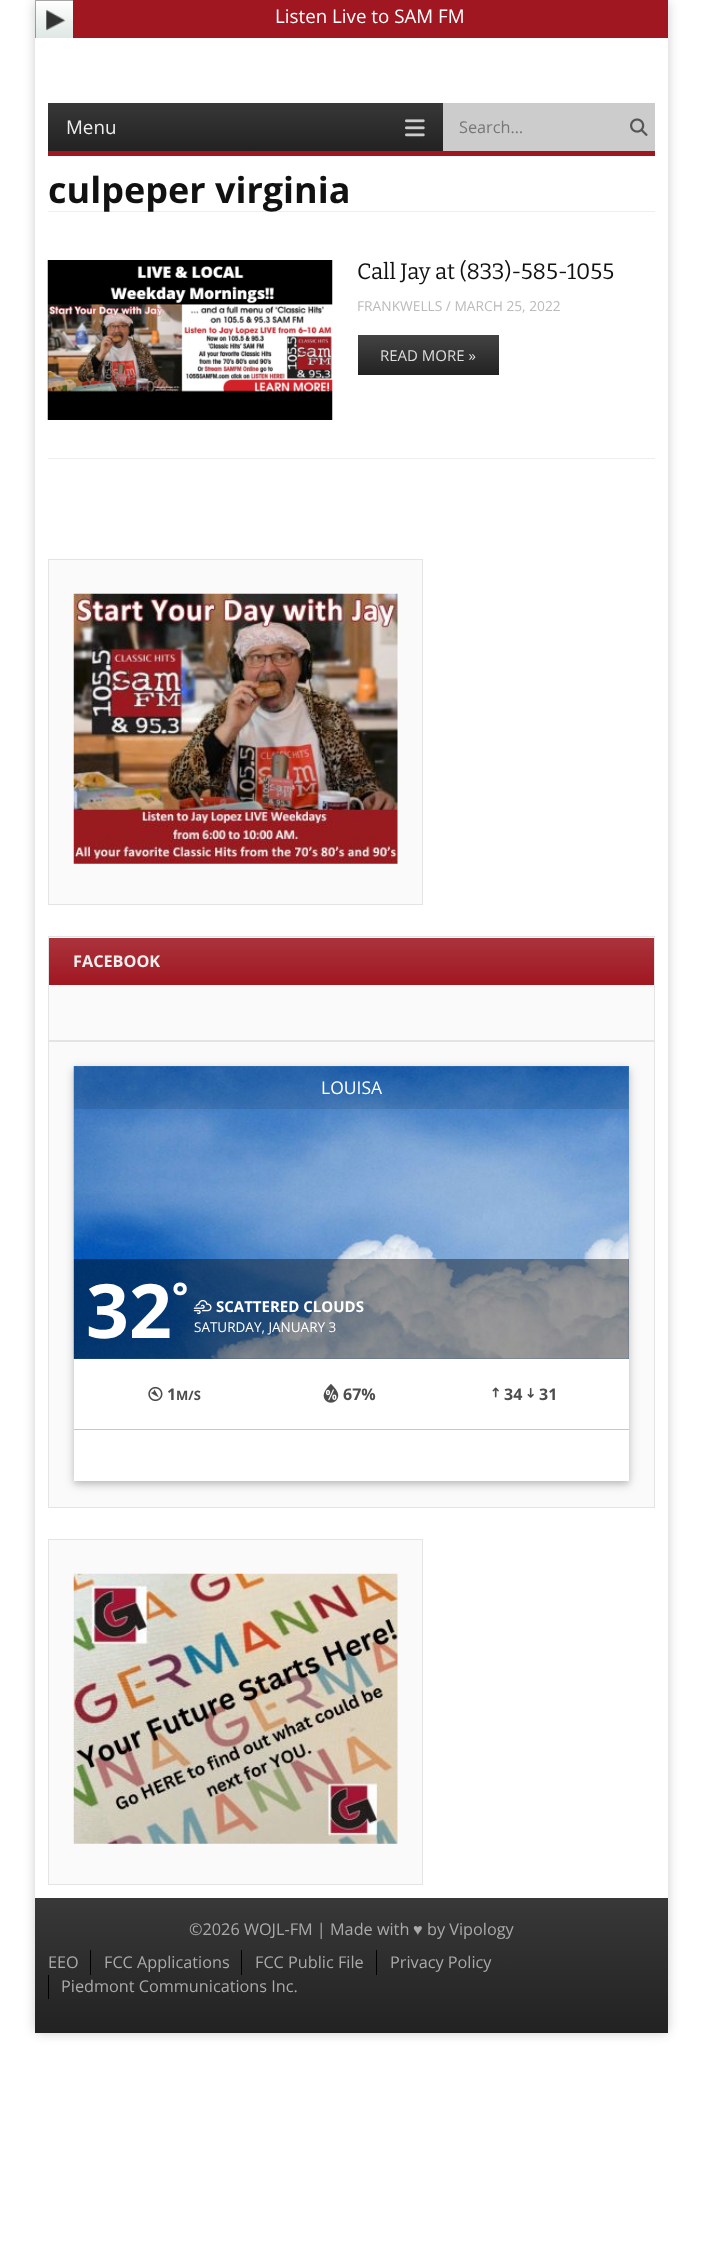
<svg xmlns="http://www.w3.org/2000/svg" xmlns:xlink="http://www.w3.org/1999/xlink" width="702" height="2251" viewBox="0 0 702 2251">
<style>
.cls-1{font:18.75px Open Sans;fill:#ffffff}
.cls-2{font:18.75px Open Sans;fill:#eeeeee}
.cls-3{font:16.25px Open Sans;fill:#777777}
.cls-4{font:bold 36px Open Sans;fill:#111111}
.cls-5{font:100 22.25px Bitter;fill:#111111}
.cls-6{font:13.75px Open Sans;fill:#bbbbbb}
.cls-7{font:15px Open Sans;fill:#dddddd}
.cls-8{font:bold 16.25px Open Sans;fill:#eeeeee}
.cls-9{font:17.5px Open Sans;fill:#ffffff}
.cls-10{font:bold 75px Open Sans;fill:#ffffff}
.cls-11{font:bold 38px Open Sans;fill:#ffffff}
.cls-12{font:bold 15px Open Sans;fill:#ffffff}
.cls-13{font:13.5px Open Sans;fill:#ffffff}
.cls-14{font:bold 16px Open Sans;fill:#4d4d4d}
.cls-15{font:bold 13px Open Sans;fill:#4d4d4d}
.cls-16{font:16.25px Open Sans;fill:#aaaaaa}
.cls-17{font:16.25px Liberation Serif;fill:#aaaaaa}
</style>
<defs>
<clipPath id="clip1"><path d="M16 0H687V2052H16ZM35 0H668V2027C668 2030.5 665.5 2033 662 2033H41C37.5 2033 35 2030.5 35 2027Z" clip-rule="evenodd"/></clipPath>
<linearGradient id="g1" gradientUnits="userSpaceOnUse" x1="54" y1="0" x2="54" y2="38"><stop offset="0" stop-color="#ffffff"/><stop offset="1" stop-color="#dee8e4"/></linearGradient>
<clipPath id="clip2"><rect x="35" y="0" width="38" height="38"/></clipPath>
<linearGradient id="g2" gradientUnits="userSpaceOnUse" x1="245" y1="102" x2="245" y2="151"><stop offset="0" stop-color="#383838"/><stop offset="1" stop-color="#222222"/></linearGradient>
<linearGradient id="g3" gradientUnits="userSpaceOnUse" x1="428" y1="335" x2="428" y2="375"><stop offset="0" stop-color="#434343"/><stop offset="1" stop-color="#222222"/></linearGradient>
<linearGradient id="g4" gradientUnits="userSpaceOnUse" x1="351" y1="938" x2="351" y2="985"><stop offset="0" stop-color="#ab333c"/><stop offset="1" stop-color="#a01721"/></linearGradient>
<linearGradient id="g5" gradientUnits="userSpaceOnUse" x1="351" y1="1898" x2="351" y2="2033"><stop offset="0" stop-color="#383838"/><stop offset="1" stop-color="#222222"/></linearGradient>
</defs>
<rect width="100%" height="100%" fill="#ffffff"/>
<g clip-path="url(#clip1)">
<rect fill="#000000" fill-opacity="0.2" filter="blur(6px)" x="35" y="0" width="633" height="2033" rx="6"/>
</g>
<rect fill="url(#g1)" x="35" y="3" width="38" height="35"/>
<g clip-path="url(#clip2)">
<path fill="#000000" fill-opacity="0.35" fill-rule="evenodd" d="M-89-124H196V161H-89ZM36 1H74V39H36Z"/>
</g>
<image xlink:href="image0.png" x="46" y="9" width="20" height="22"/>
<rect fill="#a01721" x="73" y="0" width="595" height="38"/>
<rect fill="#a01721" x="48" y="151" width="607" height="5"/>
<rect fill="url(#g2)" x="48" y="103" width="395" height="48"/>
<image xlink:href="image1.png" x="405" y="119" width="20" height="18"/>
<rect fill="#cccccc" x="443" y="103" width="212" height="48"/>
<image xlink:href="image2.png" x="630" y="118" width="18" height="18"/>
<rect fill="#eeeeee" x="48" y="211" width="607" height="1"/>
<rect fill="#eeeeee" x="48" y="458" width="607" height="1"/>
<image xlink:href="image3.png" x="47" y="260" width="286" height="160"/>
<rect fill="url(#g3)" x="358" y="335" width="141" height="40"/>
<rect fill="#fafafa" stroke="#e4e4e4" x="48.5" y="559.5" width="374" height="345"/>
<image xlink:href="image4.png" x="73" y="593" width="325" height="271"/>
<rect fill="#fafafa" stroke="#e4e4e4" x="48.5" y="936.5" width="606" height="104"/>
<rect fill="url(#g4)" x="49" y="938" width="605" height="47"/>
<rect fill="#fafafa" stroke="#e4e4e4" x="48.5" y="1041.5" width="606" height="466"/>
<rect fill="#000000" fill-opacity="0.12" filter="blur(6px)" x="74" y="1069" width="555" height="415"/>
<rect fill="#000000" fill-opacity="0.16" filter="blur(3px)" x="74" y="1069" width="555" height="415"/>
<rect fill="#629be0" x="74" y="1066" width="555" height="293"/>
<image xlink:href="image5.png" x="73" y="1066" width="556" height="293"/>
<rect fill="#000000" fill-opacity="0.1" x="74" y="1066" width="555" height="43"/>
<rect fill="#000000" fill-opacity="0.4" x="74" y="1259" width="555" height="100"/>
<image xlink:href="image6.png" x="193" y="1299" width="19" height="16"/>
<rect fill="#ffffff" x="74" y="1359" width="555" height="122"/>
<rect fill="#c7c5c6" x="74" y="1429" width="555" height="1"/>
<image xlink:href="image7.png" x="148" y="1386" width="15" height="16"/>
<image xlink:href="image8.png" x="323" y="1384" width="16" height="19"/>
<image xlink:href="image9.png" x="492" y="1387" width="7" height="11"/>
<image xlink:href="image10.png" x="527" y="1388" width="7" height="10"/>
<rect fill="#fafafa" stroke="#e4e4e4" x="48.5" y="1539.5" width="374" height="345"/>
<image xlink:href="image11.png" x="73" y="1573" width="325" height="271"/>
<rect fill="url(#g5)" x="35" y="1898" width="633" height="135"/>
<rect fill="#000000" x="90" y="1950" width="1" height="25"/>
<rect fill="#000000" x="241" y="1950" width="1" height="25"/>
<rect fill="#000000" x="376" y="1950" width="1" height="25"/>
<rect fill="#000000" x="48" y="1975" width="1" height="24"/>
<text class="cls-1" x="275" y="23">Listen Live to SAM FM</text>
<text class="cls-2" x="66" y="134">Menu</text>
<text class="cls-3" x="459" y="133">Search…</text>
<text class="cls-4" x="48" y="203">culpeper virginia</text>
<text class="cls-5" x="357" y="279">Call Jay at (833)-585-1055</text>
<text class="cls-6" x="357" y="311">FRANKWELLS / MARCH 25, 2022</text>
<text class="cls-7" x="380" y="361">READ MORE »</text>
<text class="cls-8" x="73" y="967">FACEBOOK</text>
<text class="cls-9" x="321" y="1094">LOUISA</text>
<text class="cls-10" x="86" y="1338">32</text>
<text class="cls-11" x="172" y="1310">°</text>
<text class="cls-12" x="216" y="1312">SCATTERED CLOUDS</text>
<text class="cls-13" x="194" y="1332">SATURDAY, JANUARY 3</text>
<text class="cls-14" x="167" y="1400">1</text>
<text class="cls-15" x="176" y="1400">M/S</text>
<text class="cls-14" x="343" y="1400">67%</text>
<text class="cls-14" x="504" y="1400">34</text>
<text class="cls-14" x="539" y="1400">31</text>
<text class="cls-16" x="189" y="1935">©2026 WOJL-FM | Made with</text>
<text class="cls-17" x="413" y="1935">♥</text>
<text class="cls-16" x="427" y="1935">by Vipology</text>
<text class="cls-16" x="48" y="1968">EEO</text>
<text class="cls-16" x="104" y="1968">FCC Applications</text>
<text class="cls-16" x="255" y="1968">FCC Public File</text>
<text class="cls-16" x="390" y="1968">Privacy Policy</text>
<text class="cls-16" x="61" y="1992">Piedmont Communications Inc.</text>
</svg>
